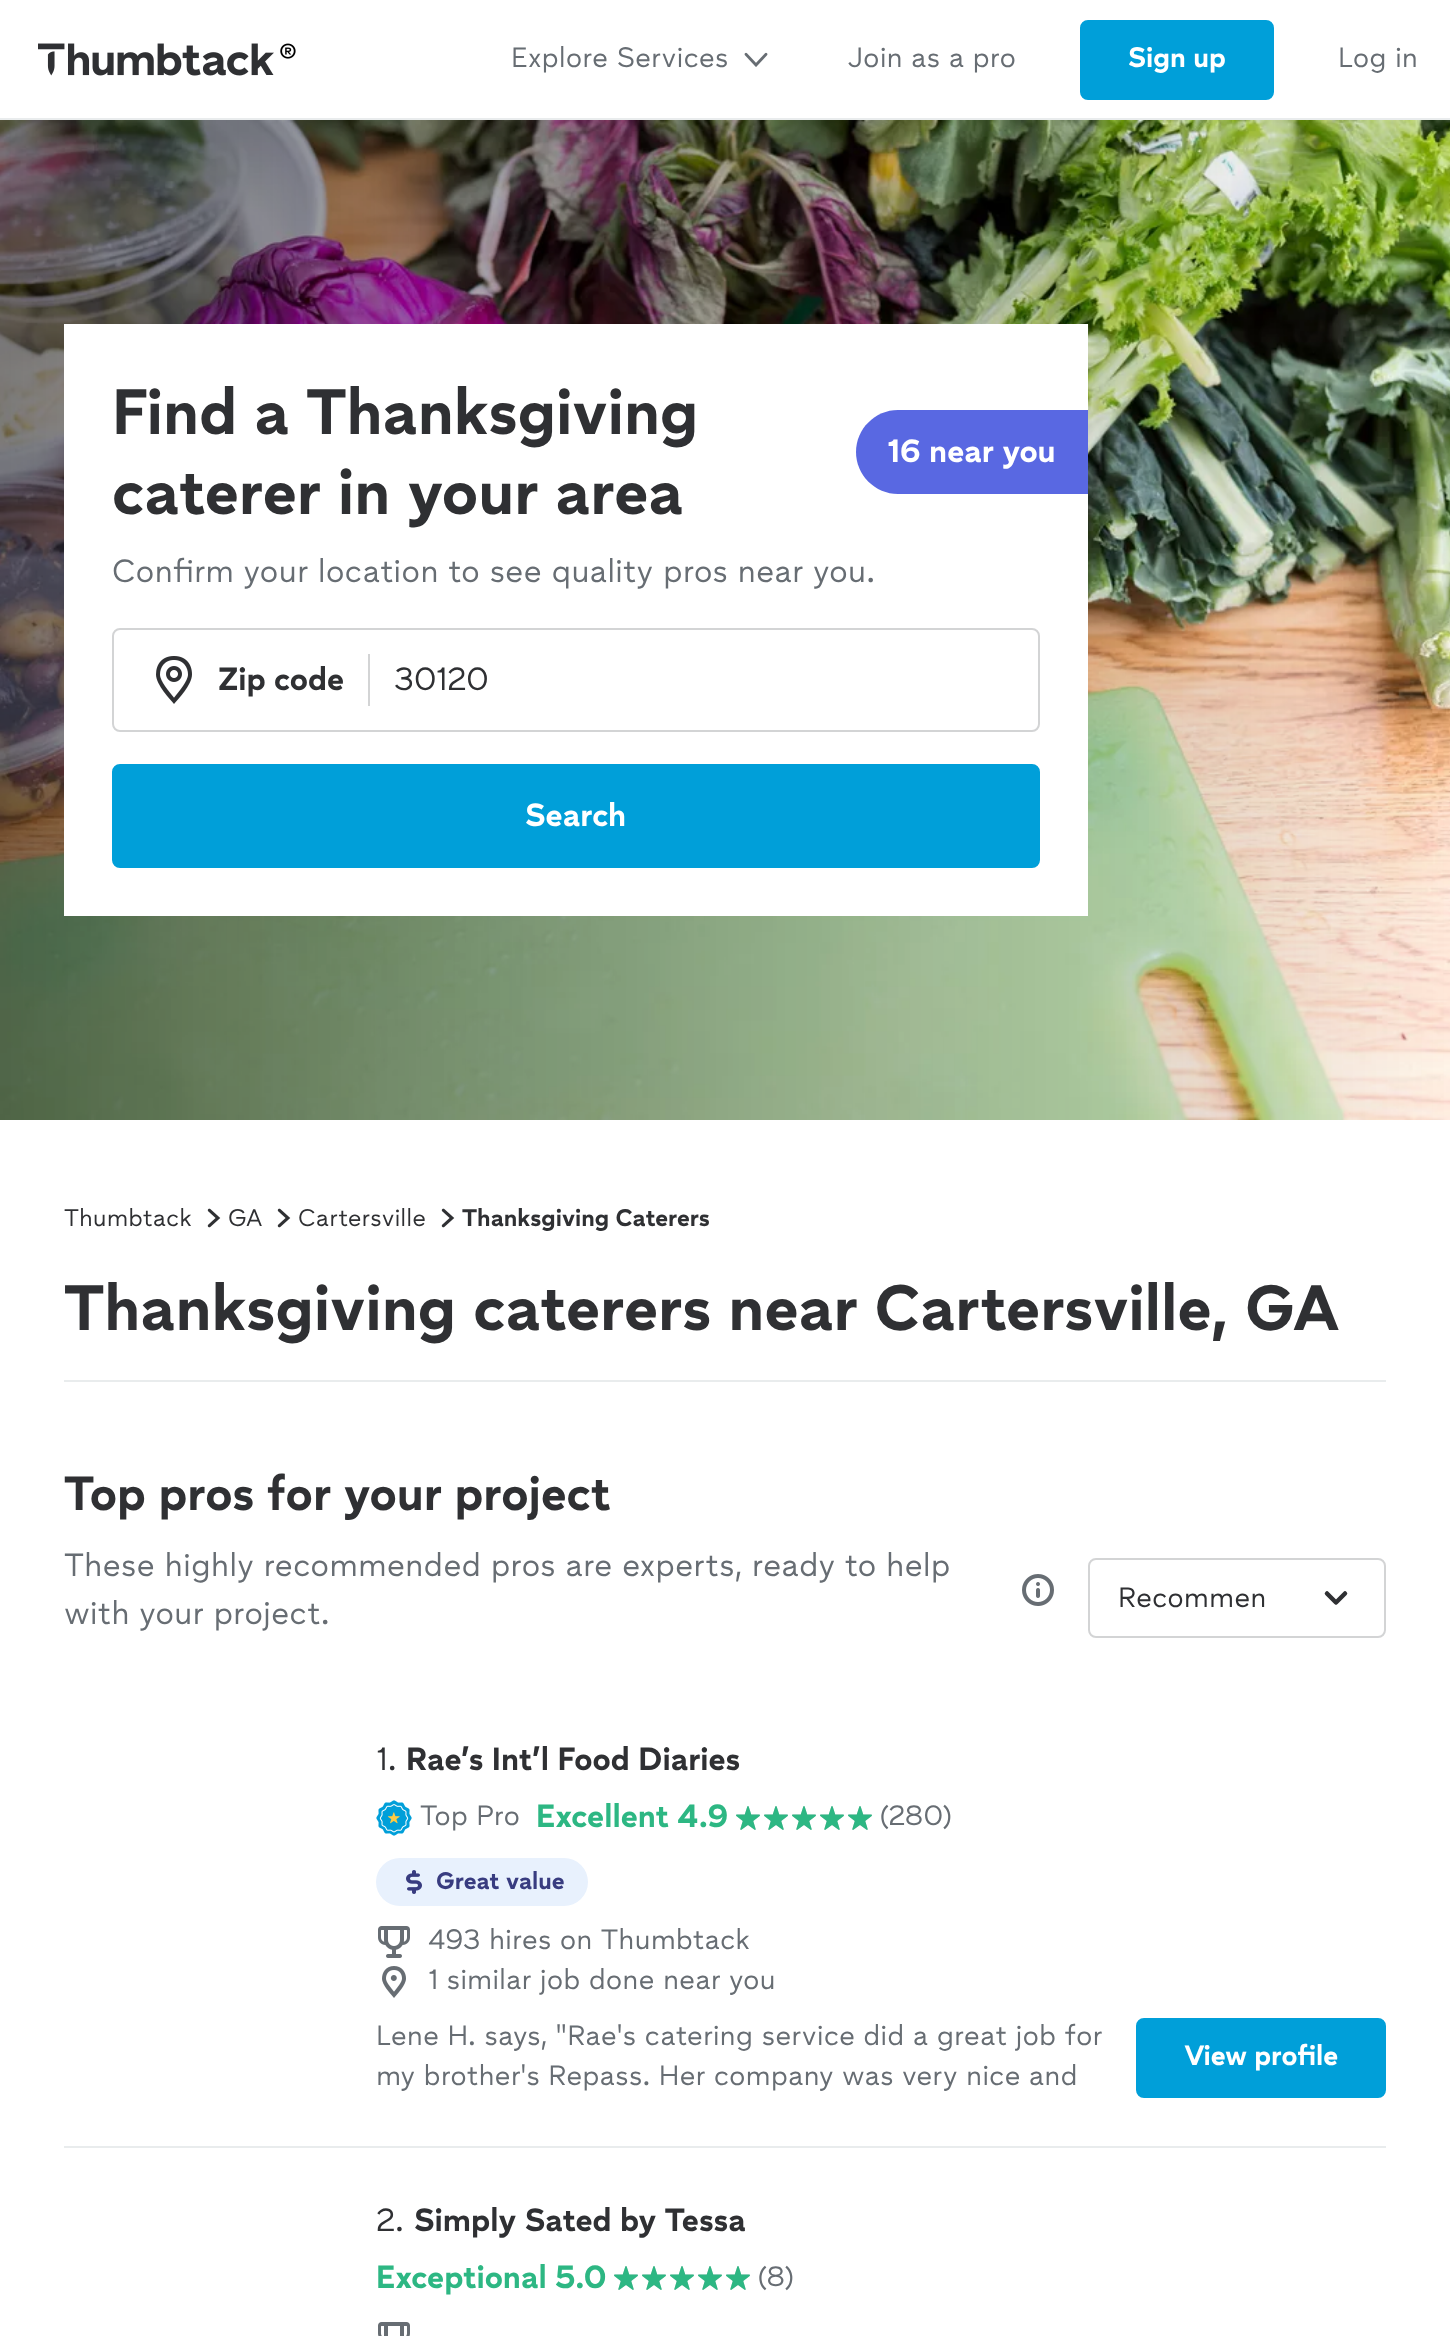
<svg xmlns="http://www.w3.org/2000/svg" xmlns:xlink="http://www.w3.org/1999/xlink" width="1450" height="2336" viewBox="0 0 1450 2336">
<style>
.cls-1{font:28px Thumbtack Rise;fill:#676d73}
.cls-2{font:bold 28px Thumbtack Rise;fill:#ffffff}
.cls-3{font:bold 64px Thumbtack Rise;fill:#2f3033}
.cls-4{font:bold 32px Thumbtack Rise;fill:#ffffff}
.cls-5{font:32px Thumbtack Rise;fill:#676d73}
.cls-6{font:bold 32px Thumbtack Rise;fill:#2f3033}
.cls-7{font:32px Thumbtack Rise;fill:#2f3033}
.cls-8{font:24px Thumbtack Rise;fill:#2f3033}
.cls-9{font:bold 24px Thumbtack Rise;fill:#2f3033}
.cls-10{font:bold 48px Thumbtack Rise;fill:#2f3033}
.cls-11{font:28px Thumbtack Rise;fill:#2f3033}
.cls-12{font:bold 32px Thumbtack Rise;fill:#2db783}
.cls-13{font:bold 24px Thumbtack Rise;fill:#383c80}
</style>
<rect width="100%" height="100%" fill="#ffffff"/>
<rect fill="#e9eced" x="0" y="118" width="1450" height="2"/>
<image xlink:href="image0.png" x="38" y="43" width="258" height="33"/>
<image xlink:href="image1.png" x="744" y="52" width="24" height="15"/>
<rect fill="#009fd9" stroke="#009fd9" stroke-width="4" x="1082" y="22" width="190" height="76" rx="6"/>
<image xlink:href="image2.png" x="0" y="120" width="1450" height="1000"/>
<rect fill="#ffffff" x="64" y="324" width="1024" height="592"/>
<path fill="#5968e2" d="M898 410H1088V494H898C875 494 856 475 856 452C856 429 875 410 898 410Z"/>
<rect fill="none" stroke="#d3d4d5" stroke-width="2" x="113" y="629" width="926" height="102" rx="7"/>
<image xlink:href="image3.png" x="156" y="656" width="36" height="48"/>
<rect fill="#d3d4d5" x="368" y="654" width="2" height="52"/>
<rect fill="#009fd9" stroke="#009fd9" stroke-width="4" x="114" y="766" width="924" height="100" rx="6"/>
<rect fill="#e9eced" x="64" y="1380" width="1322" height="2"/>
<image xlink:href="image4.png" x="207" y="1208" width="14" height="20"/>
<image xlink:href="image4.png" x="277" y="1208" width="14" height="20"/>
<image xlink:href="image4.png" x="441" y="1208" width="14" height="20"/>
<image xlink:href="image5.png" x="1022" y="1574" width="32" height="32"/>
<rect fill="none" stroke="#d3d4d5" stroke-width="2" x="1089" y="1559" width="296" height="78" rx="7"/>
<path fill="none" stroke="#2f3033" stroke-width="4.5" stroke-linecap="round" stroke-linejoin="round" d="M1327 1593.5L1336 1602.5L1345 1593.5"/>
<rect fill="#e9eced" x="64" y="2146" width="1322" height="2"/>
<image xlink:href="image6.png" x="376" y="1800" width="36" height="36"/>
<image xlink:href="image7.png" x="736" y="1806" width="136" height="24"/>
<image xlink:href="image8.png" x="736" y="1806" width="136" height="24"/>
<rect fill="#e8f1fd" x="376" y="1858" width="212" height="48" rx="24"/>
<image xlink:href="image9.png" x="406" y="1870" width="16" height="24"/>
<image xlink:href="image10.png" x="378" y="1926" width="32" height="32"/>
<image xlink:href="image11.png" x="382" y="1966" width="24" height="32"/>
<rect fill="#009fd9" stroke="#009fd9" stroke-width="4" x="1138" y="2020" width="246" height="76" rx="6"/>
<image xlink:href="image7.png" x="614" y="2266" width="136" height="24"/>
<image xlink:href="image8.png" x="614" y="2266" width="136" height="24"/>
<image xlink:href="image12.png" x="378" y="2322" width="32" height="14"/>
<text class="cls-1" x="511" y="67">Explore Services</text>
<text class="cls-1" x="848" y="67">Join as a pro</text>
<text class="cls-2" x="1128" y="67">Sign up</text>
<text class="cls-1" x="1338" y="67">Log in</text>
<text class="cls-3"><tspan x="112" y="434">Find a Thanksgiving</tspan><tspan x="112" y="514">caterer in your area</tspan></text>
<text class="cls-4" x="888" y="462">16 near you</text>
<text class="cls-5" x="112" y="582">Confirm your location to see quality pros near you.</text>
<text class="cls-6" x="218" y="690">Zip code</text>
<text class="cls-7" x="394" y="690">30120</text>
<text class="cls-4" x="525" y="826">Search</text>
<text class="cls-8" x="64" y="1226">Thumbtack</text>
<text class="cls-8" x="228" y="1226">GA</text>
<text class="cls-8" x="298" y="1226">Cartersville</text>
<text class="cls-9" x="462" y="1226">Thanksgiving Caterers</text>
<text class="cls-3" x="64" y="1330">Thanksgiving caterers near Cartersville, GA</text>
<text class="cls-10" x="64" y="1510">Top pros for your project</text>
<text class="cls-5"><tspan x="64" y="1576">These highly recommended pros are experts, ready to help</tspan><tspan x="64" y="1624">with your project.</tspan></text>
<text class="cls-11" x="1118" y="1607">Recommen</text>
<text class="cls-7" x="376" y="1770">1.</text>
<text class="cls-6" x="406" y="1770">Rae’s Int’l Food Diaries</text>
<text class="cls-1" x="420" y="1825">Top Pro</text>
<text class="cls-12" x="536" y="1827">Excellent 4.9</text>
<text class="cls-1" x="880" y="1825">(280)</text>
<text class="cls-13" x="436" y="1889">Great value</text>
<text class="cls-1"><tspan x="428" y="1949">493 hires on Thumbtack</tspan><tspan x="428" y="1989">1 similar job done near you</tspan></text>
<text class="cls-1"><tspan x="376" y="2045">Lene H. says, "Rae's catering service did a great job for</tspan><tspan x="376" y="2085">my brother's Repass. Her company was very nice and</tspan></text>
<text class="cls-2" x="1184" y="2065">View profile</text>
<text class="cls-7" x="376" y="2231">2.</text>
<text class="cls-6" x="414" y="2231">Simply Sated by Tessa</text>
<text class="cls-12" x="376" y="2288">Exceptional 5.0</text>
<text class="cls-1" x="758" y="2286">(8)</text>
</svg>
